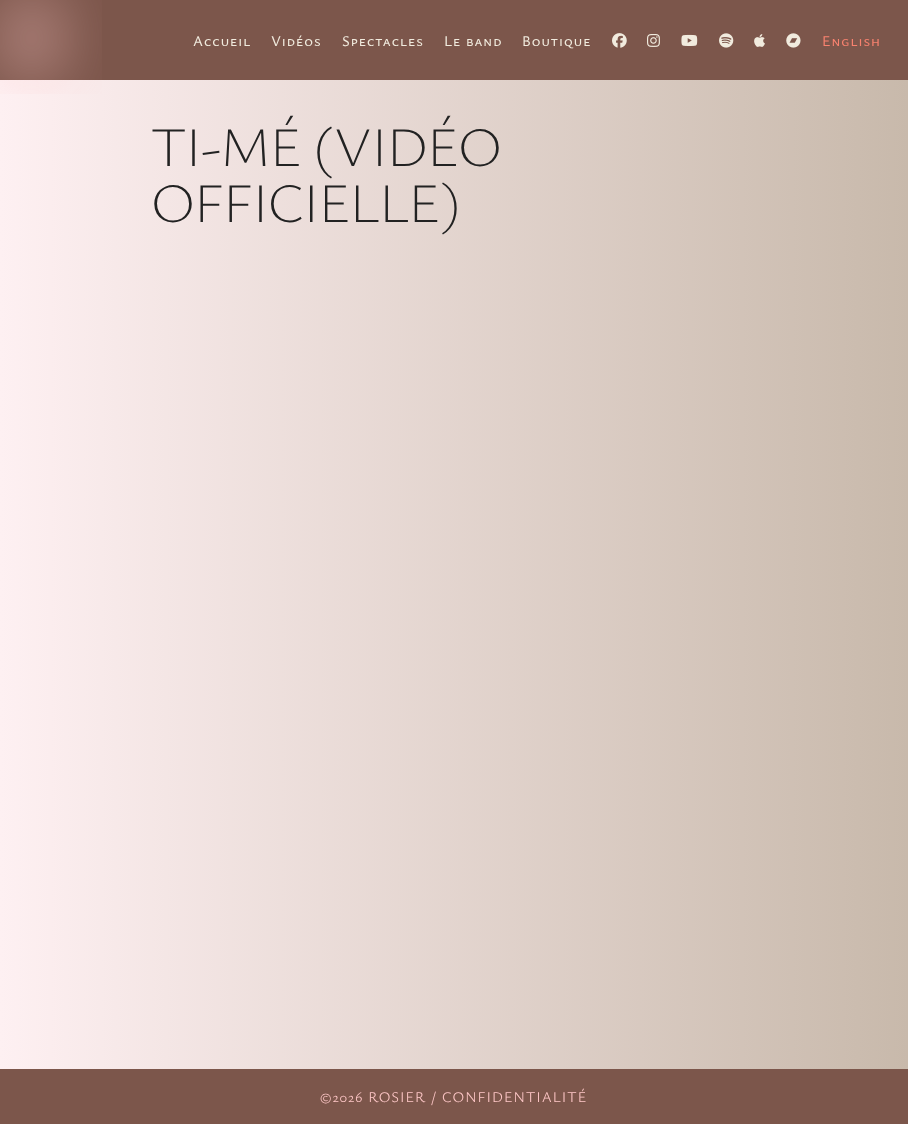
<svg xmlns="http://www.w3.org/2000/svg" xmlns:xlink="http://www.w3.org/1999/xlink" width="908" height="1124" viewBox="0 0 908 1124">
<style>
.cls-1{font:500 14.75px Ysabeau SC;letter-spacing:1px;fill:#f1ebde}
.cls-2{font:500 14.75px Ysabeau SC;letter-spacing:1px;fill:#f9826f}
.cls-3{font:200 55.5px Ysabeau SC;letter-spacing:-1px;fill:#222222}
.cls-4{font:300 14.75px Ysabeau;letter-spacing:1px;fill:#ffc8c8}
</style>
<defs>
<linearGradient id="g1" gradientUnits="userSpaceOnUse" x1="0" y1="562" x2="908" y2="562"><stop offset="0" stop-color="#fef0f2"/><stop offset="1" stop-color="#c8b9ab"/></linearGradient>
</defs>
<rect width="100%" height="100%" fill="#ffffff"/>
<rect fill="url(#g1)" x="0" y="80" width="908" height="989"/>
<rect fill="#7c564b" x="0" y="0" width="908" height="80"/>
<image xlink:href="image0.png" x="0" y="0" width="102" height="94"/>
<image xlink:href="image1.png" x="612" y="33" width="15" height="15"/>
<image xlink:href="image2.png" x="647" y="34" width="13" height="13"/>
<image xlink:href="image3.png" x="681" y="34" width="17" height="12"/>
<image xlink:href="image4.png" x="719" y="33" width="15" height="15"/>
<image xlink:href="image5.png" x="754" y="34" width="11" height="13"/>
<image xlink:href="image6.png" x="786" y="33" width="15" height="15"/>
<rect fill="#7c564b" x="0" y="1069" width="908" height="55"/>
<text class="cls-1" x="193" y="46">Accueil</text>
<text class="cls-1" x="271" y="46">Vidéos</text>
<text class="cls-1" x="342" y="46">Spectacles</text>
<text class="cls-1" x="444" y="46">Le band</text>
<text class="cls-1" x="522" y="46">Boutique</text>
<text class="cls-2" x="822" y="46">English</text>
<text class="cls-3"><tspan x="151" y="166">TI-MÉ (VIDÉO</tspan><tspan x="151" y="222">OFFICIELLE)</tspan></text>
<text class="cls-4" x="320" y="1102">©2026 ROSIER / CONFIDENTIALITÉ</text>
</svg>
